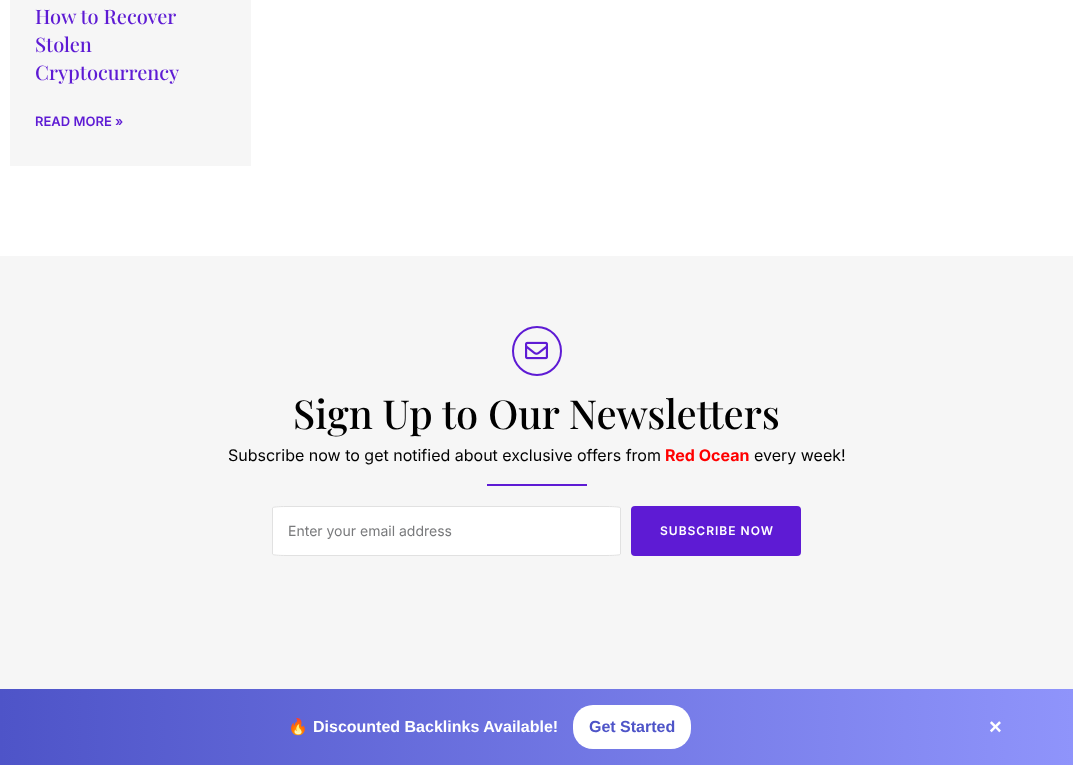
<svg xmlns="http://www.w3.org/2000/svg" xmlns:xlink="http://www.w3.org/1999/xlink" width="1073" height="765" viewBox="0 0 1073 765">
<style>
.cls-1{font:500 20px Playfair Display;fill:#5e1bd4}
.cls-2{font:600 13px Inter;fill:#5e1bd4}
.cls-3{font:500 40px Playfair Display;fill:#000000}
.cls-4{font:16px Inter;fill:#000000}
.cls-5{font:bold 16px Inter;fill:#ff0000}
.cls-6{font:14px Inter;fill:#797a7c}
.cls-7{font:600 12px Inter;letter-spacing:1px;fill:#ffffff}
.cls-8{font:bold 16px Noto Color Emoji;fill:#ffffff}
.cls-9{font:bold 16px Liberation Sans;fill:#ffffff}
.cls-10{font:bold 16px Liberation Sans;fill:#4e54c8}
.cls-11{font:bold 22px Liberation Sans;letter-spacing:1px;fill:#ffffff}
</style>
<defs>
<linearGradient id="g1" gradientUnits="userSpaceOnUse" x1="0" y1="727" x2="1073" y2="727"><stop offset="0" stop-color="#4e54c8"/><stop offset="1" stop-color="#8f94fb"/></linearGradient>
</defs>
<rect width="100%" height="100%" fill="#ffffff"/>
<rect fill="#f6f6f6" x="10" y="0" width="241" height="166"/>
<rect fill="#f6f6f6" x="0" y="256" width="1073" height="433"/>
<circle fill="none" stroke="#5e1bd4" stroke-width="2" cx="537" cy="351" r="24"/>
<image xlink:href="image0.png" x="525" y="341" width="23" height="19"/>
<rect fill="#5e1bd4" x="487" y="484" width="100" height="2"/>
<path fill="#ffffff" d="M286 506H607C615 506 621 507 621 508V554C621 555 615 556 607 556H286C278 556 272 555 272 554V508C272 507 278 506 286 506Z"/>
<path fill="none" stroke="#e1e1e1" d="M286 506.5H607C614.5 506.5 620.5 507 620.5 508V554C620.5 555 614.5 555.5 607 555.5H286C278.5 555.5 272.5 555 272.5 554V508C272.5 507 278.5 506.5 286 506.5Z"/>
<rect fill="#5e1bd4" x="631" y="506" width="170" height="50" rx="4"/>
<rect fill="url(#g1)" x="0" y="689" width="1073" height="76"/>
<rect fill="#ffffff" x="573" y="705" width="118" height="44" rx="20"/>
<text class="cls-1"><tspan x="35" y="24">How to Recover</tspan><tspan x="35" y="52">Stolen</tspan><tspan x="35" y="80">Cryptocurrency</tspan></text>
<text class="cls-2" x="35" y="126">READ MORE »</text>
<text class="cls-3" x="293" y="429">Sign Up to Our Newsletters</text>
<text class="cls-4" x="228" y="461">Subscribe now to get notified about exclusive offers from</text>
<text class="cls-5" x="665" y="461">Red Ocean</text>
<text class="cls-4" x="754" y="461">every week!</text>
<text class="cls-6" x="288" y="536">Enter your email address</text>
<text class="cls-7" x="660" y="535">SUBSCRIBE NOW</text>
<text class="cls-8" x="288" y="732">🔥</text>
<text class="cls-9" x="313" y="732">Discounted Backlinks Available!</text>
<text class="cls-10" x="589" y="732">Get Started</text>
<text class="cls-11" x="989" y="734">×</text>
</svg>
